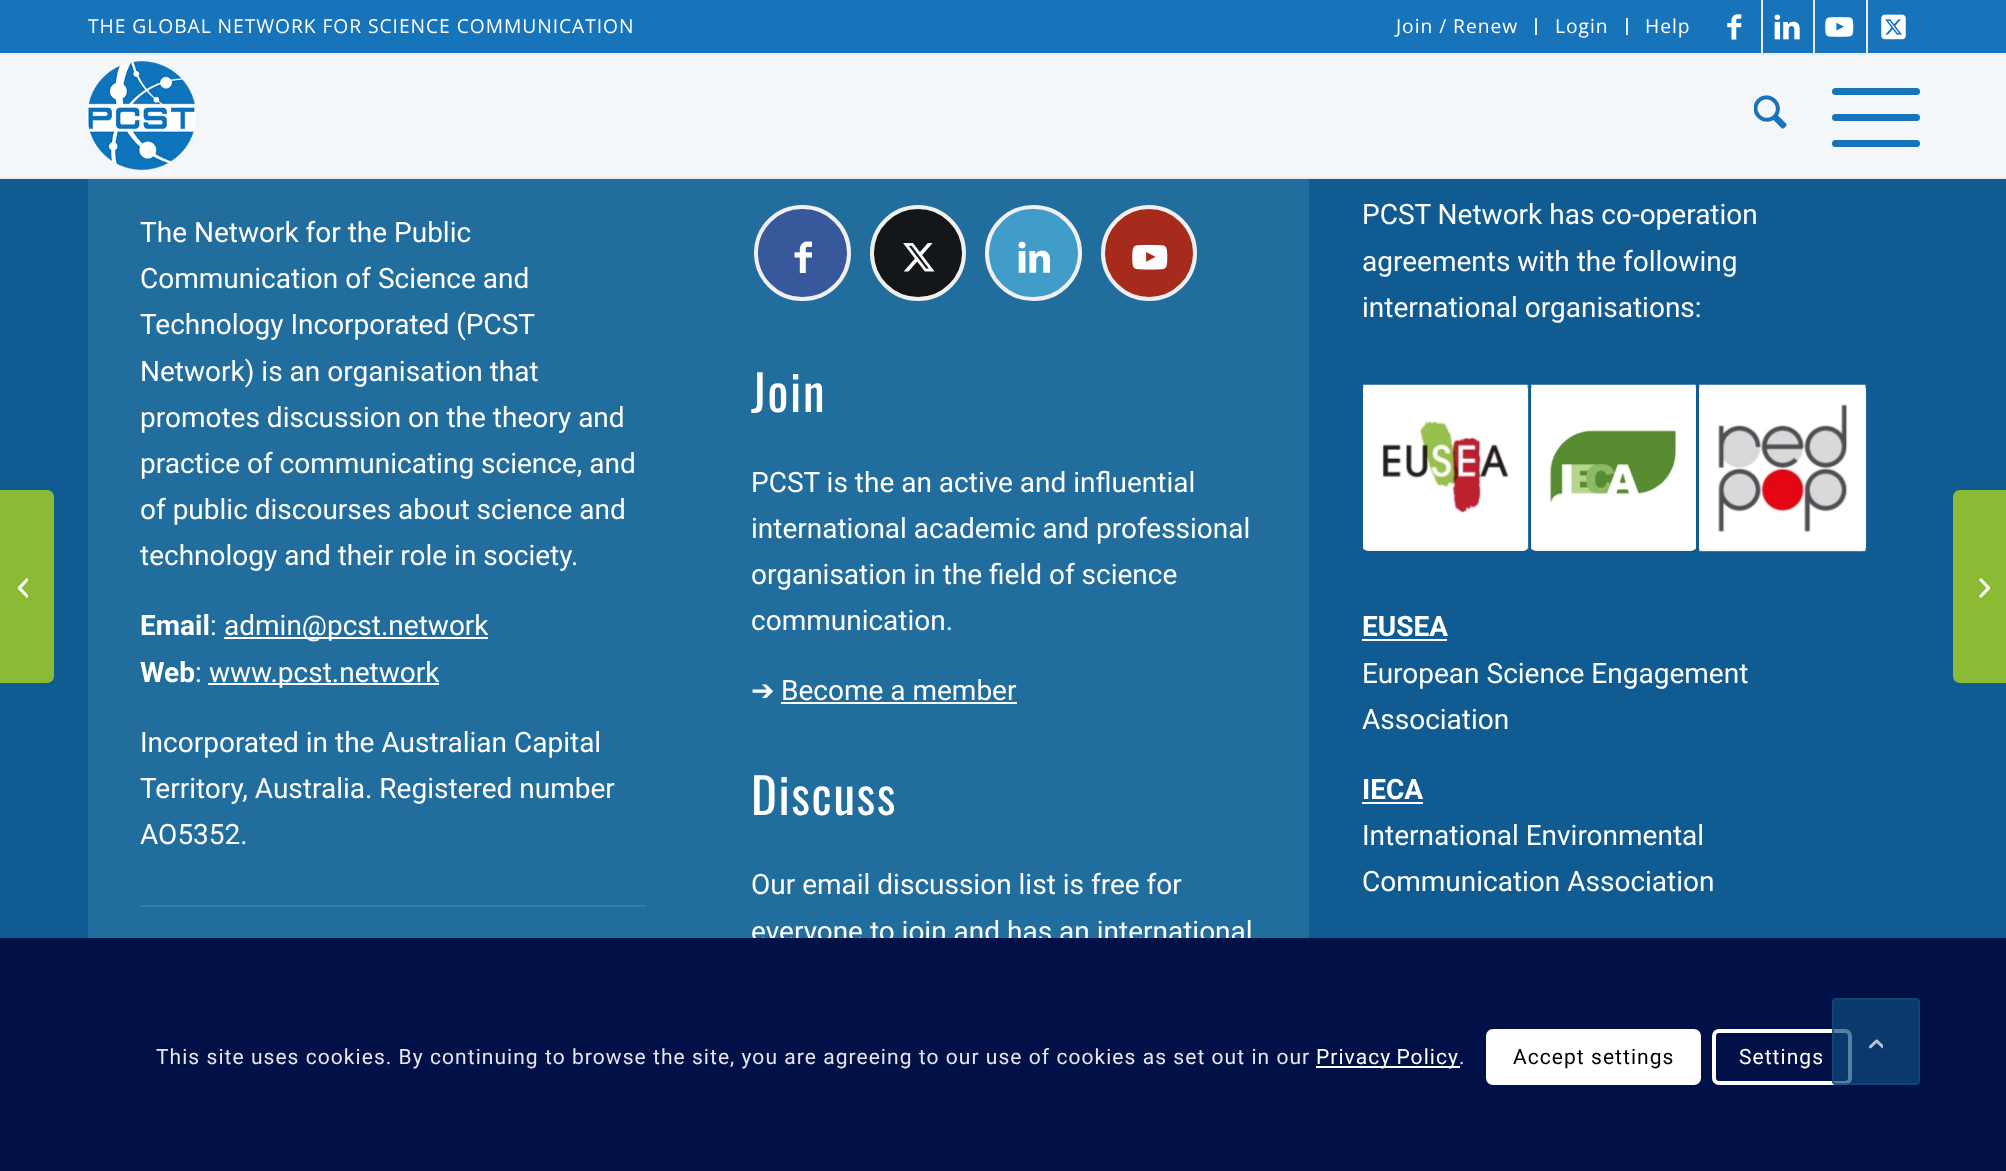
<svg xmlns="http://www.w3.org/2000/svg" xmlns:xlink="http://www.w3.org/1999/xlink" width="2006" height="1171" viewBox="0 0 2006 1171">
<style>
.cls-1{font:19.25px Open Sans;letter-spacing:0.95px;fill:#ffffff}
.cls-2{font:28px Roboto;fill:#ffffff}
.cls-3{font:bold 28px Roboto;fill:#ffffff}
.cls-4{font:49px Oswald;letter-spacing:1.75px;fill:#ffffff}
.cls-5{font:28px DejaVu Sans;fill:#ffffff}
.cls-6{font:21px Roboto;letter-spacing:1.05px;fill:#e6e7ed}
.cls-7{font:21px Roboto;letter-spacing:1.05px;fill:#ffffff}
.cls-8{font:21px Roboto;letter-spacing:1.05px;fill:#000000}
</style>
<rect width="100%" height="100%" fill="#105c92"/>
<rect fill="#1874ba" x="0" y="0" width="2006" height="53"/>
<rect fill="#ebebeb" x="0" y="53" width="2006" height="2"/>
<rect fill="#ebebeb" x="1535" y="18" width="2" height="17"/>
<rect fill="#ebebeb" x="1626" y="18" width="2" height="17"/>
<rect fill="#ebebeb" x="1761" y="0" width="2" height="53"/>
<image xlink:href="image0.png" x="1727" y="14" width="15" height="26"/>
<rect fill="#ebebeb" x="1813" y="0" width="2" height="53"/>
<image xlink:href="image1.png" x="1774" y="14" width="26" height="26"/>
<rect fill="#ebebeb" x="1866" y="0" width="2" height="53"/>
<image xlink:href="image2.png" x="1825" y="17" width="29" height="20"/>
<image xlink:href="image3.png" x="1881" y="14" width="25" height="26"/>
<rect fill="#ebebeb" x="0" y="177" width="2006" height="2"/>
<rect fill="#f3f7fa" x="0" y="55" width="2006" height="122"/>
<image xlink:href="image4.png" x="87" y="61" width="109" height="110"/>
<image xlink:href="image5.png" x="1754" y="95" width="33" height="34"/>
<rect fill="#1874ba" x="1832" y="114" width="88" height="7" rx="3.5"/>
<rect fill="#1874ba" x="1832" y="88" width="88" height="7" rx="3.5"/>
<rect fill="#1874ba" x="1832" y="140" width="88" height="7" rx="3.5"/>
<path fill="#8bba34" d="M0 490H47C51 490 54 493 54 497V676C54 680 51 683 47 683H0Z"/>
<image xlink:href="image6.png" x="18" y="578" width="10" height="20"/>
<rect fill="#216d9e" x="88" y="179" width="1221" height="759"/>
<rect fill="#ffffff" x="224" y="637" width="264" height="2"/>
<rect fill="#ffffff" x="208" y="683" width="231" height="2"/>
<rect fill="#327da9" x="140" y="905" width="506" height="2"/>
<rect fill="#37589b" stroke="#f0f0f0" stroke-width="4" x="756" y="207" width="93" height="92" rx="46"/>
<image xlink:href="image7.png" x="794" y="241" width="18" height="32"/>
<circle fill="#14171a" stroke="#f0f0f0" stroke-width="4" cx="918" cy="253" r="46"/>
<image xlink:href="image8.png" x="903" y="243" width="32" height="29"/>
<rect fill="#419cca" stroke="#f0f0f0" stroke-width="4" x="987" y="207" width="93" height="92" rx="46"/>
<image xlink:href="image9.png" x="1018" y="241" width="32" height="32"/>
<circle fill="#a72b1d" stroke="#f0f0f0" stroke-width="4" cx="1149" cy="253" r="46"/>
<image xlink:href="image10.png" x="1132" y="244" width="36" height="26"/>
<rect fill="#ffffff" x="781" y="702" width="236" height="2"/>
<rect fill="#f8f8f8" x="1363" y="385" width="165" height="166" rx="5"/>
<image xlink:href="image11.png" x="1363" y="384" width="166" height="166"/>
<rect fill="#f8f8f8" x="1531" y="385" width="165" height="166" rx="5"/>
<image xlink:href="image12.png" x="1531" y="384" width="165" height="166"/>
<rect fill="#f8f8f8" x="1699" y="385" width="167" height="166" rx="5"/>
<image xlink:href="image13.png" x="1699" y="384" width="168" height="168"/>
<rect fill="#ffffff" x="1362" y="639" width="85" height="2"/>
<rect fill="#ffffff" x="1362" y="802" width="61" height="2"/>
<path fill="#8bba34" d="M1960 490H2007V683H1960C1956 683 1953 680 1953 676V497C1953 493 1956 490 1960 490Z"/>
<image xlink:href="image14.png" x="1979" y="578" width="11" height="20"/>
<text class="cls-1" x="88" y="33">THE GLOBAL NETWORK FOR SCIENCE COMMUNICATION</text>
<text class="cls-1" x="1396" y="33">Join / Renew</text>
<text class="cls-1" x="1555" y="33">Login</text>
<text class="cls-1" x="1645" y="33">Help</text>
<text class="cls-2"><tspan x="140" y="242">The Network for the Public</tspan><tspan x="140" y="288">Communication of Science and</tspan><tspan x="140" y="334">Technology Incorporated (PCST</tspan><tspan x="140" y="381">Network) is an organisation that</tspan><tspan x="140" y="427">promotes discussion on the theory and</tspan><tspan x="140" y="473">practice of communicating science, and</tspan><tspan x="140" y="519">of public discourses about science and</tspan><tspan x="140" y="565">technology and their role in society.</tspan></text>
<text class="cls-3" x="140" y="635">Email</text>
<text class="cls-2" x="210" y="635">:</text>
<text class="cls-2" x="224" y="635">admin@pcst.network</text>
<text class="cls-3" x="140" y="682">Web</text>
<text class="cls-2" x="195" y="682">:</text>
<text class="cls-2" x="209" y="682">www.pcst.network</text>
<text class="cls-2"><tspan x="140" y="752">Incorporated in the Australian Capital</tspan><tspan x="140" y="798">Territory, Australia. Registered number</tspan><tspan x="140" y="844">AO5352.</tspan></text>
<text class="cls-4" x="751" y="412">Join</text>
<text class="cls-2"><tspan x="751" y="492">PCST is the an active and influential</tspan><tspan x="751" y="538">international academic and professional</tspan><tspan x="751" y="584">organisation in the field of science</tspan><tspan x="751" y="630">communication.</tspan></text>
<text class="cls-5" x="751" y="700">➔</text>
<text class="cls-2" x="781" y="700">Become a member</text>
<text class="cls-4" x="751" y="815">Discuss</text>
<text class="cls-2"><tspan x="751" y="894">Our email discussion list is free for</tspan><tspan x="751" y="941">everyone to join and has an international</tspan></text>
<text class="cls-2"><tspan x="1362" y="224">PCST Network has co-operation</tspan><tspan x="1362" y="271">agreements with the following</tspan><tspan x="1362" y="317">international organisations:</tspan></text>
<text class="cls-3" x="1362" y="636">EUSEA</text>
<text class="cls-2"><tspan x="1362" y="683">European Science Engagement</tspan><tspan x="1362" y="729">Association</tspan></text>
<text class="cls-3" x="1362" y="799">IECA</text>
<text class="cls-2"><tspan x="1362" y="845">International Environmental</tspan><tspan x="1362" y="891">Communication Association</tspan></text>
<rect fill="#011047" x="0" y="938" width="2006" height="233"/>
<text class="cls-6" x="156" y="1064">This site uses cookies. By continuing to browse the site, you are agreeing to our use of cookies as set out in our</text>
<rect fill="#ffffff" x="1316" y="1066" width="144" height="2"/>
<text class="cls-7" x="1316" y="1064" word-spacing="-1">Privacy Policy</text>
<text class="cls-6" x="1459" y="1064">.</text>
<rect fill="#ffffff" x="1486" y="1029" width="215" height="56" rx="7"/>
<text class="cls-8" x="1513" y="1064">Accept settings</text>
<rect fill="none" stroke="#ffffff" stroke-width="4" x="1714" y="1031" width="136" height="52" rx="5"/>
<text class="cls-7" x="1739" y="1064">Settings</text>
<rect fill="#104b7e" fill-opacity="0.7" x="1832" y="998" width="88" height="87" rx="4"/>
<rect fill="none" stroke="#104b7e" stroke-opacity="0.7" stroke-width="2" x="1833" y="999" width="86" height="85" rx="3"/>
<image xlink:href="image15.png" x="1869" y="1039" width="14" height="10"/>
</svg>
